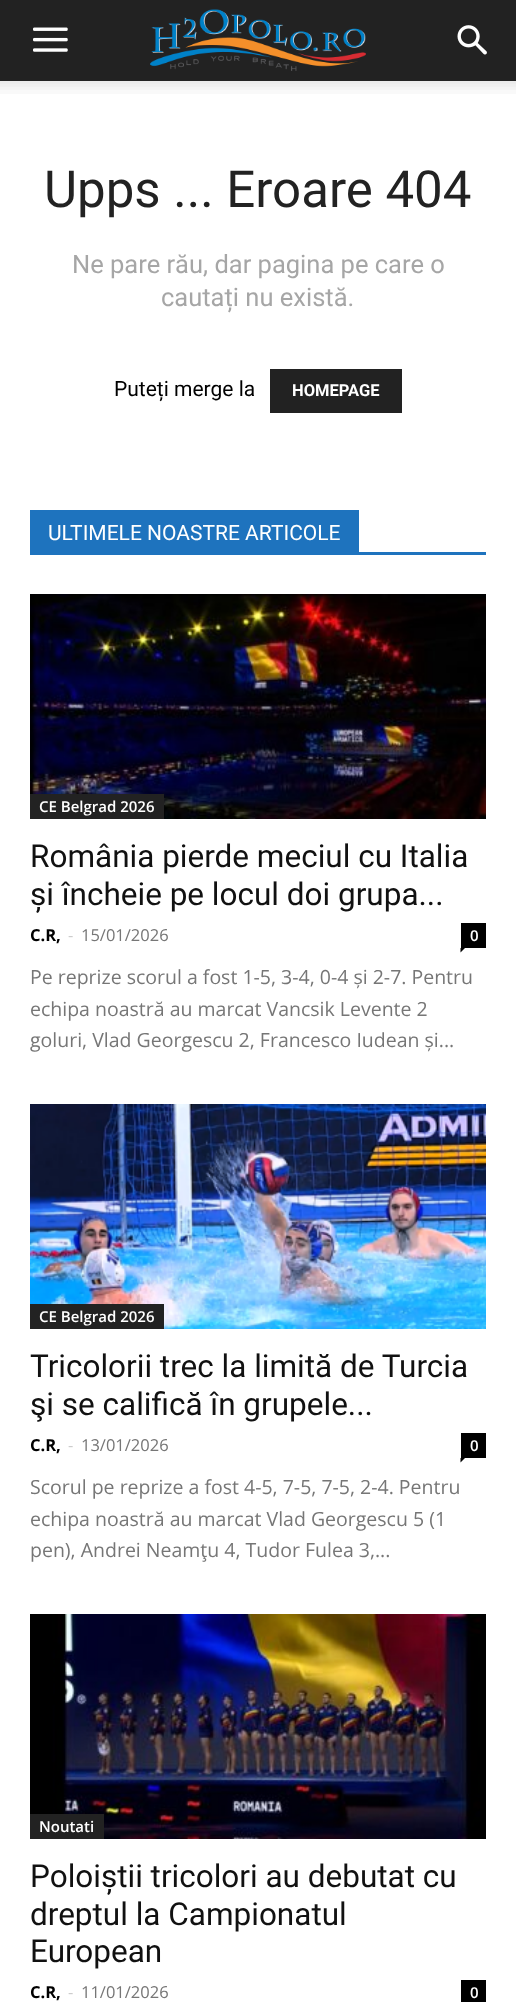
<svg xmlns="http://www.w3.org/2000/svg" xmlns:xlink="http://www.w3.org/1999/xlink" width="516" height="2002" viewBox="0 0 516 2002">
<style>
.cls-1{font:51px Roboto;fill:#222222}
.cls-2{font:25.5px Roboto;fill:#a6a6a6}
.cls-3{font:21px Roboto;fill:#000000}
.cls-4{font:bold 16.5px Roboto;fill:#ffffff}
.cls-5{font:21px Roboto;fill:#ffffff}
.cls-6{font:600 15px Open Sans;fill:#ffffff}
.cls-7{font:31.5px Roboto;fill:#111111}
.cls-8{font:bold 16.5px Open Sans;fill:#000000}
.cls-9{font:16.5px Open Sans;fill:#cccccc}
.cls-10{font:16.5px Open Sans;fill:#767676}
.cls-11{font:19.5px Open Sans;fill:#767676}
</style>
<rect width="100%" height="100%" fill="#ffffff"/>
<rect fill="#222222" x="0" y="0" width="516" height="81"/>
<image xlink:href="image0.png" x="33" y="27" width="35" height="25"/>
<image xlink:href="image1.png" x="150" y="9" width="216" height="62"/>
<image xlink:href="image2.png" x="457" y="25" width="30" height="30"/>
<image xlink:href="image3.png" x="0" y="81" width="516" height="13"/>
<rect fill="#222222" x="270" y="369" width="132" height="44"/>
<rect fill="#1e73be" x="30" y="552" width="456" height="3"/>
<rect fill="#1e73be" x="30" y="510" width="329" height="42"/>
<image xlink:href="image4.png" x="30" y="594" width="456" height="225"/>
<rect fill="#222222" x="30" y="794" width="134" height="25"/>
<rect fill="#000000" x="461" y="923" width="25" height="25"/>
<path fill="#000000" d="M460.5 948H465L460.5 952.5Z"/>
<image xlink:href="image5.png" x="30" y="1104" width="456" height="225"/>
<rect fill="#222222" x="30" y="1304" width="134" height="25"/>
<rect fill="#000000" x="461" y="1433" width="25" height="25"/>
<path fill="#000000" d="M460.5 1458H465L460.5 1462.5Z"/>
<image xlink:href="image6.png" x="30" y="1614" width="456" height="225"/>
<rect fill="#222222" x="30" y="1814" width="74" height="25"/>
<rect fill="#000000" x="461" y="1980" width="25" height="22"/>
<text class="cls-1" x="44" y="207">Upps ... Eroare 404</text>
<text class="cls-2" x="72" y="273">Ne pare rău, dar pagina pe care o</text>
<text class="cls-2" x="161" y="306">cautați nu există.</text>
<text class="cls-3" x="114" y="396">Puteți merge la</text>
<text class="cls-4" x="292" y="396">HOMEPAGE</text>
<text class="cls-5" x="48" y="540">ULTIMELE NOASTRE ARTICOLE</text>
<text class="cls-6" x="39" y="812">CE Belgrad 2026</text>
<text class="cls-7"><tspan x="30" y="867">România pierde meciul cu Italia</tspan><tspan x="30" y="905">și încheie pe locul doi grupa...</tspan></text>
<text class="cls-8" x="30" y="941">C.R,</text>
<text class="cls-9" x="68" y="941">-</text>
<text class="cls-10" x="81" y="941">15/01/2026</text>
<text class="cls-6" x="470" y="941">0</text>
<text class="cls-11"><tspan x="30" y="984">Pe reprize scorul a fost 1-5, 3-4, 0-4 și 2-7. Pentru</tspan><tspan x="30" y="1016">echipa noastră au marcat Vancsik Levente 2</tspan><tspan x="30" y="1047">goluri, Vlad Georgescu 2, Francesco Iudean și...</tspan></text>
<text class="cls-6" x="39" y="1322">CE Belgrad 2026</text>
<text class="cls-7"><tspan x="30" y="1377">Tricolorii trec la limită de Turcia</tspan><tspan x="30" y="1415">şi se califică în grupele...</tspan></text>
<text class="cls-8" x="30" y="1451">C.R,</text>
<text class="cls-9" x="68" y="1451">-</text>
<text class="cls-10" x="81" y="1451">13/01/2026</text>
<text class="cls-6" x="470" y="1451">0</text>
<text class="cls-11"><tspan x="30" y="1494">Scorul pe reprize a fost 4-5, 7-5, 7-5, 2-4. Pentru</tspan><tspan x="30" y="1526">echipa noastră au marcat Vlad Georgescu 5 (1</tspan><tspan x="30" y="1557">pen), Andrei Neamţu 4, Tudor Fulea 3,...</tspan></text>
<text class="cls-6" x="39" y="1832">Noutati</text>
<text class="cls-7"><tspan x="30" y="1887">Poloiștii tricolori au debutat cu</tspan><tspan x="30" y="1925">dreptul la Campionatul</tspan><tspan x="30" y="1962">European</tspan></text>
<text class="cls-8" x="30" y="1998">C.R,</text>
<text class="cls-9" x="68" y="1998">-</text>
<text class="cls-10" x="81" y="1998">11/01/2026</text>
<text class="cls-6" x="470" y="1998">0</text>
</svg>
